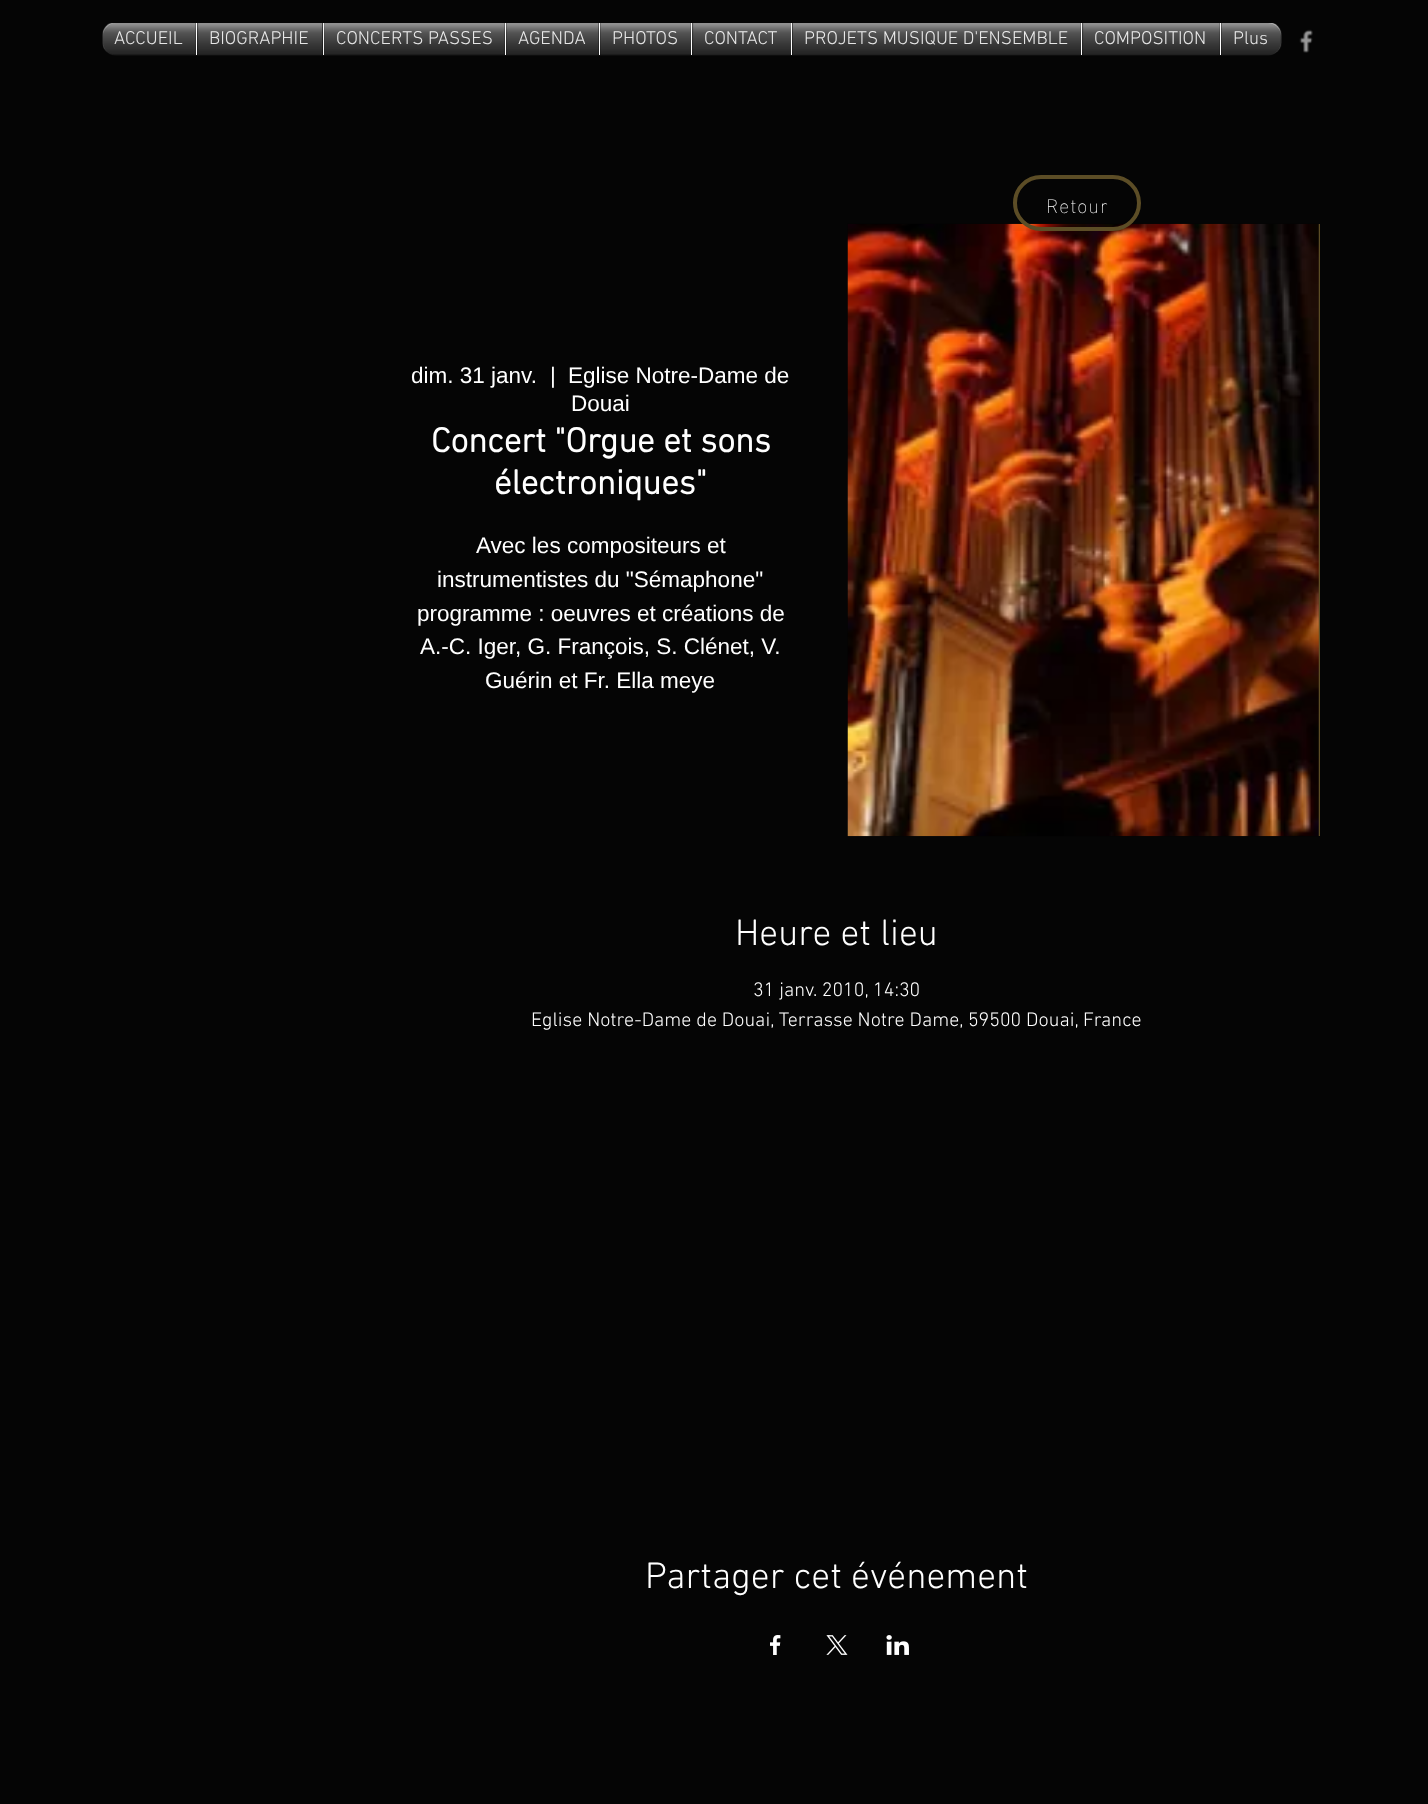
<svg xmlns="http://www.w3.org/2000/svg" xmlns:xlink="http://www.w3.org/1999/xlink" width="1428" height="1804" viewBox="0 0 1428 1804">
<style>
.cls-1{font:300 18.75px 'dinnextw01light';fill:#ffffff}
.cls-2{font:200 20px 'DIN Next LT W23';letter-spacing:1px;fill:#ffffff}
.cls-3{font:22.5px Liberation Sans;fill:#ffffff}
.cls-4{font:bold 35px 'dinnextw01light';fill:#ffffff}
.cls-5{font:300 37.5px 'dinnextw01light';fill:#ffffff}
.cls-6{font:300 20px 'dinnextw01light';fill:#ffffff}
</style>
<rect width="100%" height="100%" fill="#050505"/>
<image xlink:href="image0.png" x="102" y="23" width="1180" height="33"/>
<image xlink:href="image1.png" x="103" y="23" width="1178" height="31"/>
<path fill="#050505" d="M116 23H196V55H116C109 55 103 49 103 42V36C103 29 109 23 116 23Z"/>
<rect fill="#050505" x="197" y="23" width="126" height="32"/>
<rect fill="#ffffff" x="196" y="23" width="1" height="32"/>
<rect fill="#050505" x="324" y="23" width="181" height="32"/>
<rect fill="#ffffff" x="323" y="23" width="1" height="32"/>
<rect fill="#050505" x="506" y="23" width="93" height="32"/>
<rect fill="#ffffff" x="505" y="23" width="1" height="32"/>
<rect fill="#050505" x="600" y="23" width="91" height="32"/>
<rect fill="#ffffff" x="599" y="23" width="1" height="32"/>
<rect fill="#050505" x="692" y="23" width="99" height="32"/>
<rect fill="#ffffff" x="691" y="23" width="1" height="32"/>
<rect fill="#050505" x="792" y="23" width="289" height="32"/>
<rect fill="#ffffff" x="791" y="23" width="1" height="32"/>
<rect fill="#050505" x="1082" y="23" width="138" height="32"/>
<rect fill="#ffffff" x="1081" y="23" width="1" height="32"/>
<path fill="#050505" d="M1220 23H1268C1275 23 1281 29 1281 36V42C1281 49 1275 55 1268 55H1220Z"/>
<rect fill="#ffffff" x="1220" y="23" width="1" height="32"/>
<image xlink:href="image20.png" x="1299" y="29" width="14" height="24"/>
<rect fill="#5c4d26" x="1318" y="224" width="2" height="612"/>
<image xlink:href="image21.png" x="847" y="223" width="472" height="614"/>
<rect fill="#050505" fill-opacity="0.03" x="1013" y="224" width="128" height="7"/>
<rect fill="none" stroke="#5c4d26" stroke-width="4" x="1015" y="177" width="124" height="52" rx="26"/>
<image xlink:href="image22.png" x="770" y="1635" width="11" height="20"/>
<image xlink:href="image23.png" x="826" y="1635" width="22" height="20"/>
<image xlink:href="image24.png" x="886" y="1635" width="23" height="20"/>
<text class="cls-1" x="114" y="44">ACCUEIL</text>
<image xlink:href="image2.png" x="103" y="23" width="93" height="32"/>
<image xlink:href="image3.png" x="103" y="23" width="93" height="31"/>
<text class="cls-1" x="209" y="44">BIOGRAPHIE</text>
<image xlink:href="image4.png" x="197" y="23" width="126" height="32"/>
<image xlink:href="image5.png" x="198" y="23" width="124" height="31"/>
<text class="cls-1" x="336" y="44">CONCERTS PASSES</text>
<image xlink:href="image6.png" x="324" y="23" width="181" height="32"/>
<image xlink:href="image7.png" x="323" y="23" width="182" height="32"/>
<text class="cls-1" x="518" y="44">AGENDA</text>
<image xlink:href="image8.png" x="506" y="23" width="93" height="32"/>
<image xlink:href="image9.png" x="506" y="23" width="92" height="31"/>
<text class="cls-1" x="612" y="44">PHOTOS</text>
<image xlink:href="image10.png" x="600" y="23" width="91" height="32"/>
<image xlink:href="image11.png" x="599" y="23" width="92" height="32"/>
<text class="cls-1" x="704" y="44">CONTACT</text>
<image xlink:href="image12.png" x="692" y="23" width="99" height="32"/>
<image xlink:href="image13.png" x="693" y="23" width="98" height="31"/>
<text class="cls-1" x="804" y="44">PROJETS MUSIQUE D'ENSEMBLE</text>
<image xlink:href="image14.png" x="792" y="23" width="289" height="32"/>
<image xlink:href="image15.png" x="793" y="23" width="288" height="31"/>
<text class="cls-1" x="1094" y="44">COMPOSITION</text>
<image xlink:href="image16.png" x="1082" y="23" width="138" height="32"/>
<image xlink:href="image17.png" x="1083" y="23" width="137" height="31"/>
<text class="cls-1" x="1233" y="44">Plus</text>
<image xlink:href="image18.png" x="1221" y="23" width="61" height="32"/>
<image xlink:href="image19.png" x="1222" y="23" width="59" height="31"/>
<text class="cls-2" x="1046" y="213">Retour</text>
<text class="cls-3" x="411" y="383">dim. 31 janv.</text>
<text class="cls-3" x="550" y="383">|</text>
<text class="cls-3" x="568" y="383">Eglise Notre-Dame de</text>
<text class="cls-3" x="571" y="411">Douai</text>
<text class="cls-4" x="431" y="452">Concert "Orgue et sons</text>
<text class="cls-4" x="494" y="494">électroniques"</text>
<text class="cls-3" x="476" y="553">Avec les compositeurs et</text>
<text class="cls-3" x="437" y="587">instrumentistes du "Sémaphone"</text>
<text class="cls-3" x="417" y="621">programme : oeuvres et créations de</text>
<text class="cls-3" x="420" y="654">A.-C. Iger, G. François, S. Clénet, V.</text>
<text class="cls-3" x="485" y="688">Guérin et Fr. Ella meye</text>
<text class="cls-5" x="735" y="945">Heure et lieu</text>
<text class="cls-6" x="753" y="996">31 janv. 2010, 14:30</text>
<text class="cls-6" x="531" y="1026">Eglise Notre-Dame de Douai, Terrasse Notre Dame, 59500 Douai, France</text>
<text class="cls-5" x="645" y="1588">Partager cet événement</text>
</svg>
